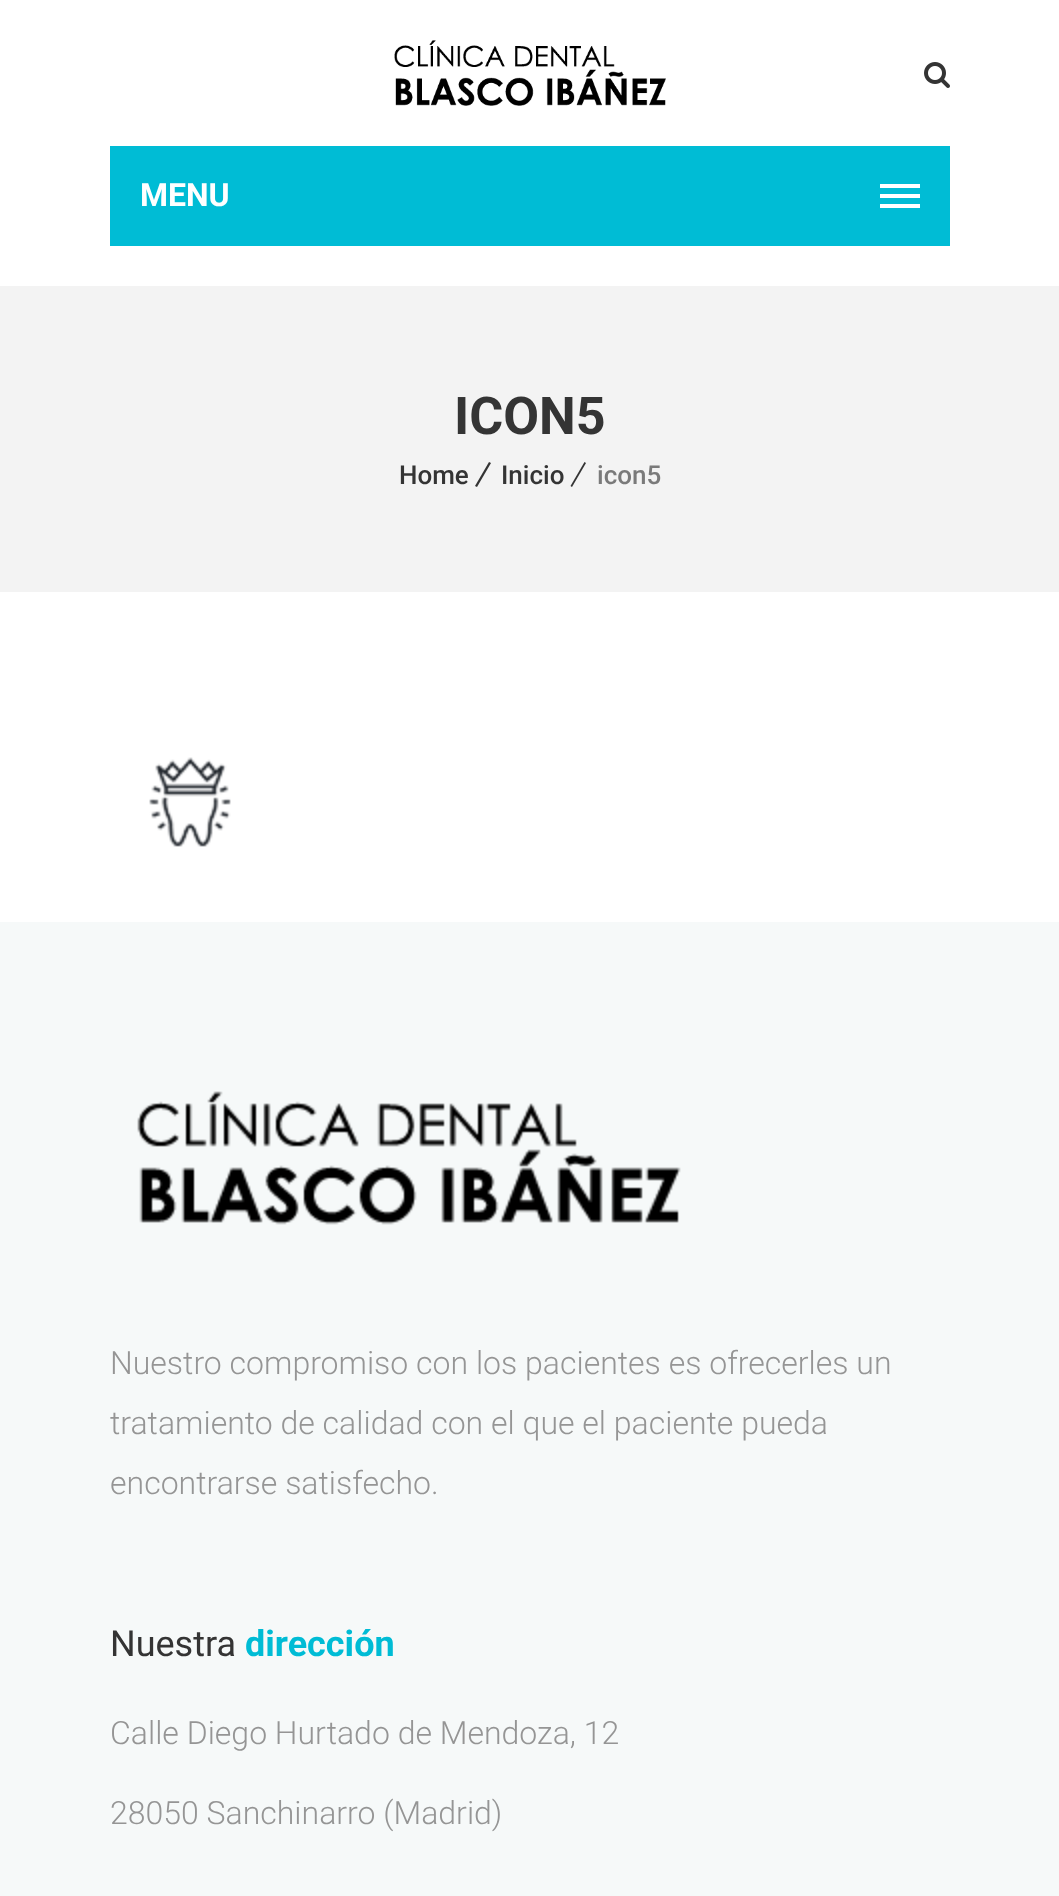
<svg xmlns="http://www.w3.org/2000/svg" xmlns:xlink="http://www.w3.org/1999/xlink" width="1059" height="1896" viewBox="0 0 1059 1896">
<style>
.cls-1{font:bold 32px Roboto;fill:#ffffff}
.cls-2{font:bold 52px Roboto;fill:#343434}
.cls-3{font:500 26px Roboto;fill:#343434}
.cls-4{font:500 26px Roboto;fill:#7a7a7a}
.cls-5{font:300 32px Roboto;fill:#959595}
.cls-6{font:36px Roboto;fill:#343434}
.cls-7{font:bold 36px Roboto;fill:#00bcd5}
</style>
<rect width="100%" height="100%" fill="#ffffff"/>
<image xlink:href="image0.png" x="394" y="40" width="272" height="66"/>
<image xlink:href="image1.png" x="924" y="62" width="26" height="26"/>
<rect fill="#00bcd5" x="110" y="146" width="840" height="100"/>
<rect fill="#ffffff" x="880" y="194" width="40" height="4"/>
<rect fill="#ffffff" x="880" y="184" width="40" height="4"/>
<rect fill="#ffffff" x="880" y="204" width="40" height="4"/>
<rect fill="#f3f3f3" x="0" y="286" width="1059" height="306"/>
<path fill="#343434" d="M489 462L491 463L477 487L475 486Z"/>
<path fill="#343434" d="M584.5 462L586 463L572 487L570.5 486Z"/>
<image xlink:href="image2.png" x="149" y="757" width="82" height="90"/>
<rect fill="#f6f9f9" x="0" y="922" width="1059" height="974"/>
<image xlink:href="image3.png" x="137" y="1091" width="544" height="134"/>
<text class="cls-1" x="140" y="206">MENU</text>
<text class="cls-2" x="454" y="434">ICON5</text>
<text class="cls-3" x="399" y="484">Home</text>
<text class="cls-3" x="501" y="484">Inicio</text>
<text class="cls-4" x="597" y="484">icon5</text>
<text class="cls-5"><tspan x="110" y="1374">Nuestro compromiso con los pacientes es ofrecerles un</tspan><tspan x="110" y="1434">tratamiento de calidad con el que el paciente pueda</tspan><tspan x="110" y="1494">encontrarse satisfecho.</tspan></text>
<text class="cls-6" x="110" y="1656">Nuestra</text>
<text class="cls-7" x="245" y="1656">dirección</text>
<text class="cls-5" x="110" y="1744">Calle Diego Hurtado de Mendoza, 12</text>
<text class="cls-5" x="110" y="1824">28050 Sanchinarro (Madrid)</text>
</svg>
